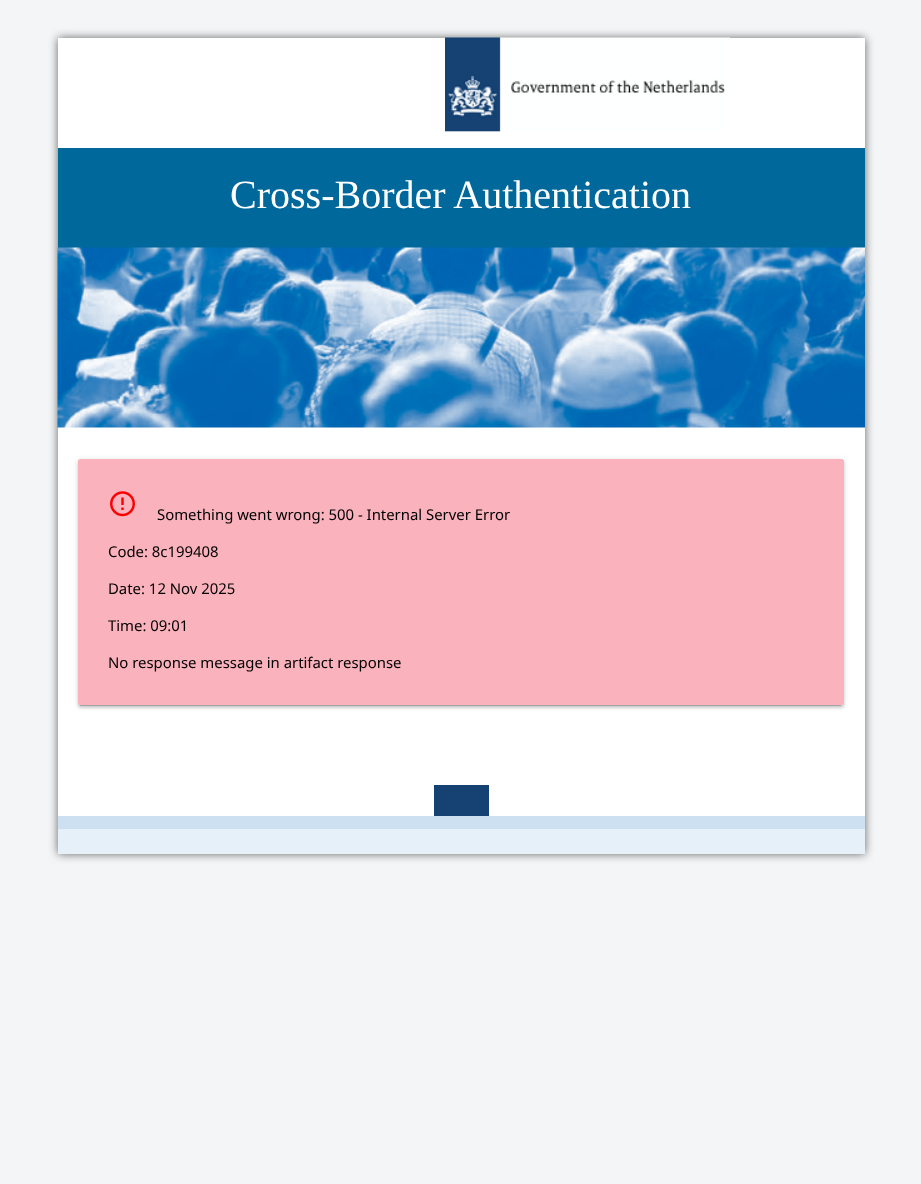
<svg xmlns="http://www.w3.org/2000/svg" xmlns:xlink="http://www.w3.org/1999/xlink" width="921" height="1184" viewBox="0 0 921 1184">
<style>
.cls-1{font:40px Liberation Serif;fill:#ffffff}
.cls-2{font:14.9px Noto Sans;fill:#000000}
</style>
<rect width="100%" height="100%" fill="#f3f5f6"/>
<rect fill="#666666" filter="blur(5px)" x="58" y="38" width="807" height="816"/>
<rect fill="#ffffff" x="58" y="38" width="807" height="778"/>
<image xlink:href="image0.png" x="445" y="37" width="285" height="95"/>
<rect fill="#01689b" x="58" y="148" width="807" height="100"/>
<image xlink:href="image1.png" x="57" y="247" width="808" height="181"/>
<rect fill="#000000" fill-opacity="0.2" filter="blur(0.5px)" x="80" y="465" width="761" height="241"/>
<rect fill="#000000" fill-opacity="0.12" filter="blur(3px)" x="78" y="460" width="766" height="246" rx="2.5"/>
<rect fill="#000000" fill-opacity="0.14" filter="blur(1px)" x="78" y="461" width="766" height="247" rx="2.5"/>
<rect fill="#fab2bd" x="78" y="459" width="766" height="246" rx="2.5"/>
<image xlink:href="image2.png" x="110" y="491" width="25" height="26"/>
<rect fill="#154273" x="434" y="785" width="55" height="31"/>
<rect fill="#e5f0f9" x="58" y="829" width="807" height="25"/>
<rect fill="#cce0f1" x="58" y="816" width="807" height="13"/>
<text class="cls-1" x="230" y="208">Cross-Border Authentication</text>
<text class="cls-2" x="157" y="520">Something went wrong: 500 - Internal Server Error</text>
<text class="cls-2" x="108" y="557">Code: 8c199408</text>
<text class="cls-2" x="108" y="594">Date: 12 Nov 2025</text>
<text class="cls-2" x="108" y="631">Time: 09:01</text>
<text class="cls-2" x="108" y="668">No response message in artifact response</text>
</svg>
